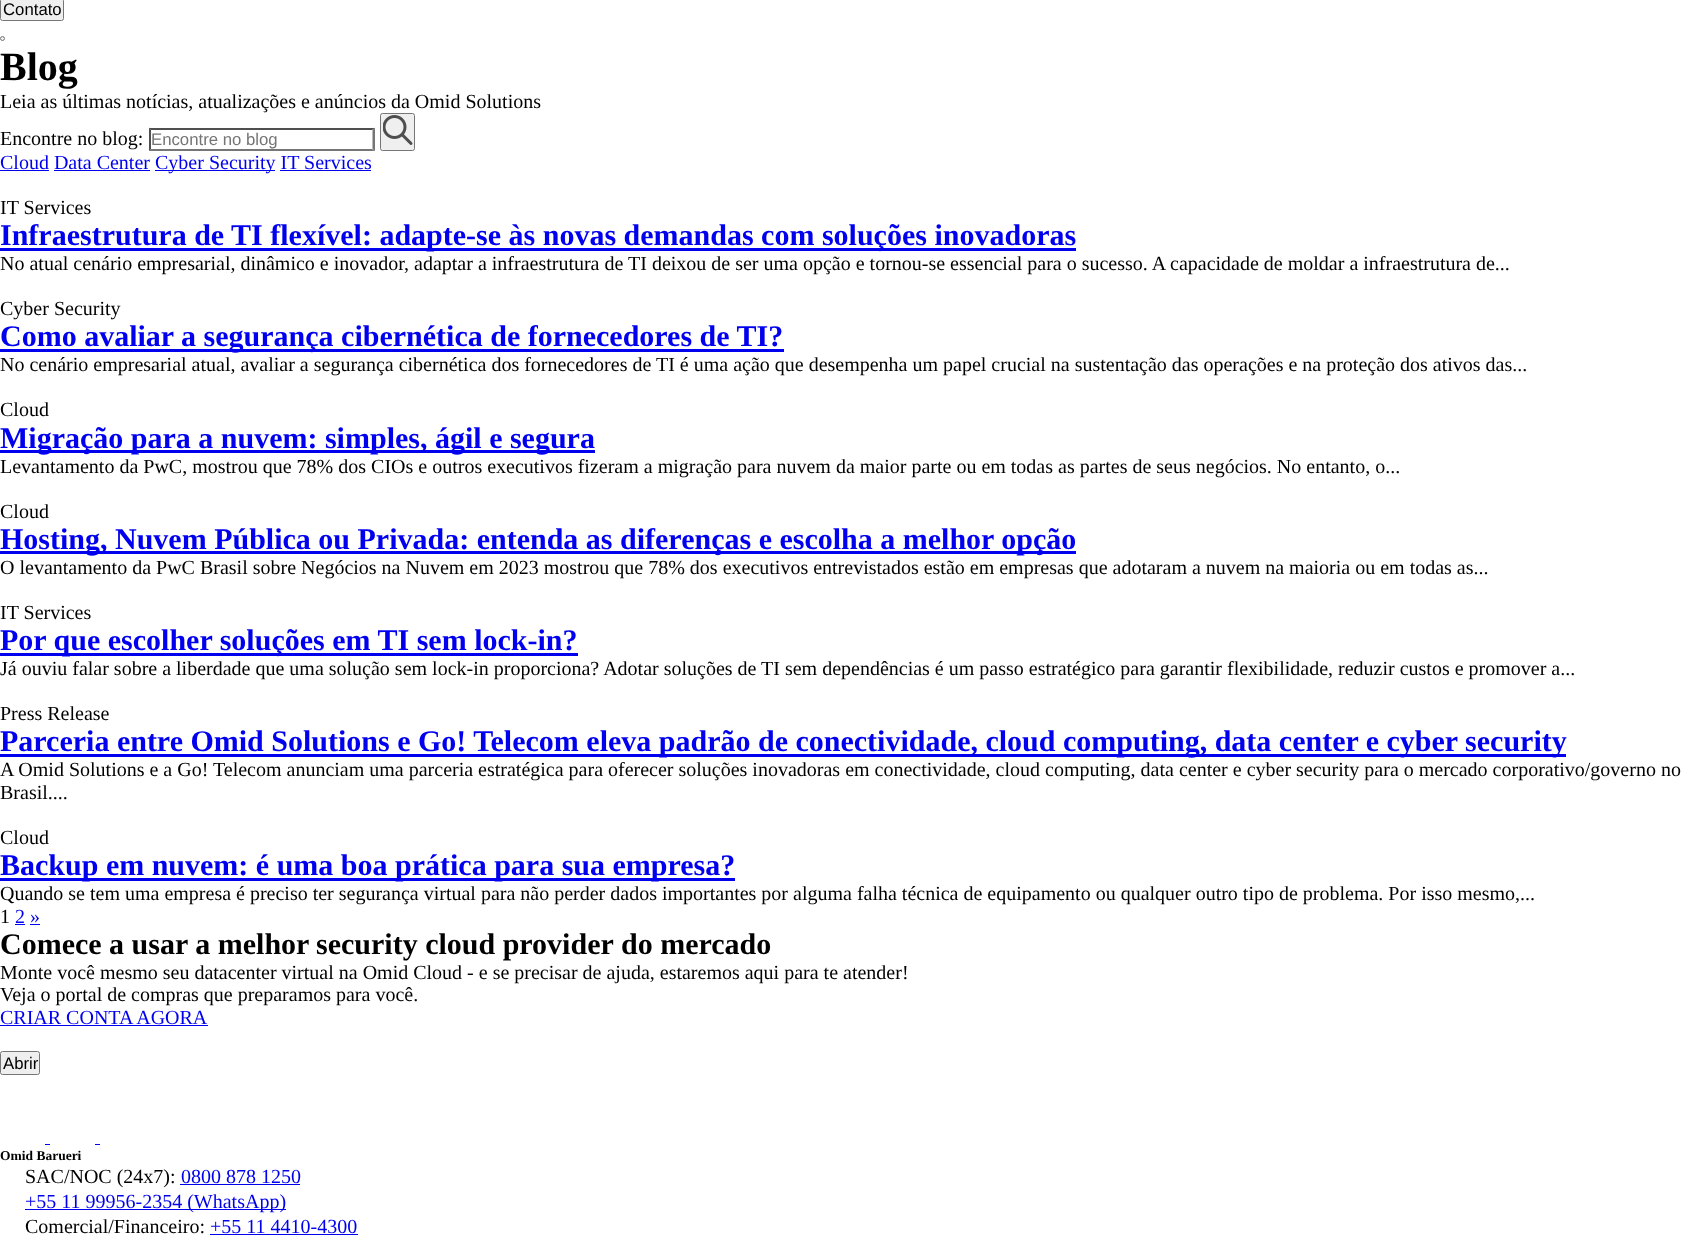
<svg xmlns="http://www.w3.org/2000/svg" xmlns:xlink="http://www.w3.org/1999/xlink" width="1696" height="1248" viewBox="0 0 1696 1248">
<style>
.cls-1{font:16.75px Liberation Sans;fill:#000000}
.cls-2{font:bold 40px Liberation Serif;fill:#000000}
.cls-3{font:20px Liberation Serif;fill:#000000}
.cls-4{font:16.75px Liberation Sans;fill:#757575}
.cls-5{font:20px Liberation Serif;fill:#0000ee}
.cls-6{font:bold 30px Liberation Serif;fill:#0000ee}
.cls-7{font:bold 30px Liberation Serif;fill:#000000}
.cls-8{font:bold 13.5px Liberation Serif;fill:#000000}
</style>
<rect width="100%" height="100%" fill="#ffffff"/>
<rect fill="#efefef" stroke="#767676" x="0.5" y="-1.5" width="63" height="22" rx="2"/>
<circle fill="#efefef" stroke="#767676" cx="2.5" cy="38.5" r="2"/>
<path fill="#4f4f4f" d="M149 128H375L372 130H151Z"/>
<path fill="#767676" d="M375 127.5V151L372.5 149V130Z"/>
<path fill="#767676" d="M375 151H149L151 149H372Z"/>
<path fill="#4f4f4f" d="M149 151V127.5L151 130V149Z"/>
<rect fill="#efefef" stroke="#767676" x="380.5" y="113.5" width="34" height="37" rx="2"/>
<image xlink:href="image0.png" x="383" y="115" width="30" height="30"/>
<rect fill="#0000ee" x="0" y="170" width="49" height="1"/>
<rect fill="#0000ee" x="155" y="170" width="120" height="1"/>
<rect fill="#0000ee" x="54" y="170" width="96" height="1"/>
<rect fill="#0000ee" x="280" y="170" width="91" height="1"/>
<rect fill="#0000ee" x="0" y="248" width="1076" height="3"/>
<rect fill="#0000ee" x="0" y="349" width="784" height="3"/>
<rect fill="#0000ee" x="0" y="450" width="595" height="3"/>
<rect fill="#0000ee" x="0" y="551" width="1076" height="3"/>
<rect fill="#0000ee" x="0" y="653" width="578" height="3"/>
<rect fill="#0000ee" x="0" y="754" width="1566" height="3"/>
<rect fill="#0000ee" x="0" y="878" width="735" height="3"/>
<rect fill="#0000ee" x="15" y="924" width="10" height="1"/>
<rect fill="#0000ee" x="30" y="924" width="10" height="1"/>
<rect fill="#0000ee" x="0" y="1025" width="208" height="1"/>
<rect fill="#efefef" stroke="#767676" x="0.5" y="1051.5" width="39" height="23" rx="2"/>
<rect fill="#0000ee" x="45" y="1144" width="5" height="1"/>
<rect fill="#0000ee" x="95" y="1144" width="5" height="1"/>
<rect fill="#0000ee" x="180" y="1184" width="120" height="1"/>
<rect fill="#0000ee" x="25" y="1209" width="261" height="1"/>
<rect fill="#0000ee" x="210" y="1234" width="148" height="1"/>
<text class="cls-1" x="3" y="15">Contato</text>
<text class="cls-2" x="0" y="80">Blog</text>
<text class="cls-3"><tspan x="0" y="108">Leia as últimas notícias, atualizações e anúncios da Omid Solutions</tspan><tspan x="0" y="145">Encontre no blog:</tspan></text>
<text class="cls-4" x="151" y="145">Encontre no blog</text>
<text class="cls-5" x="0" y="169">Cloud Data Center</text>
<text class="cls-5" x="155" y="169">Cyber Security IT Services</text>
<text class="cls-3" x="0" y="214">IT Services</text>
<text class="cls-6" x="0" y="245">Infraestrutura de TI flexível: adapte-se às novas demandas com soluções inovadoras</text>
<text class="cls-3" x="0" y="270">No atual cenário empresarial, dinâmico e inovador, adaptar a infraestrutura de TI deixou de ser uma opção e tornou-se essencial para o sucesso. A capacidade de moldar a infraestrutura de...</text>
<text class="cls-3" x="0" y="315">Cyber Security</text>
<text class="cls-6" x="0" y="346">Como avaliar a segurança cibernética de fornecedores de TI?</text>
<text class="cls-3" x="0" y="371">No cenário empresarial atual, avaliar a segurança cibernética dos fornecedores de TI é uma ação que desempenha um papel crucial na sustentação das operações e na proteção dos ativos das...</text>
<text class="cls-3" x="0" y="416">Cloud</text>
<text class="cls-6" x="0" y="448">Migração para a nuvem: simples, ágil e segura</text>
<text class="cls-3" x="0" y="473">Levantamento da PwC, mostrou que 78% dos CIOs e outros executivos fizeram a migração para nuvem da maior parte ou em todas as partes de seus negócios. No entanto, o...</text>
<text class="cls-3" x="0" y="518">Cloud</text>
<text class="cls-6" x="0" y="549">Hosting, Nuvem Pública ou Privada: entenda as diferenças e escolha a melhor opção</text>
<text class="cls-3" x="0" y="574">O levantamento da PwC Brasil sobre Negócios na Nuvem em 2023 mostrou que 78% dos executivos entrevistados estão em empresas que adotaram a nuvem na maioria ou em todas as...</text>
<text class="cls-3" x="0" y="619">IT Services</text>
<text class="cls-6" x="0" y="650">Por que escolher soluções em TI sem lock-in?</text>
<text class="cls-3" x="0" y="675">Já ouviu falar sobre a liberdade que uma solução sem lock-in proporciona? Adotar soluções de TI sem dependências é um passo estratégico para garantir flexibilidade, reduzir custos e promover a...</text>
<text class="cls-3" x="0" y="720">Press Release</text>
<text class="cls-6" x="0" y="751">Parceria entre Omid Solutions e Go! Telecom eleva padrão de conectividade, cloud computing, data center e cyber security</text>
<text class="cls-3"><tspan x="0" y="776">A Omid Solutions e a Go! Telecom anunciam uma parceria estratégica para oferecer soluções inovadoras em conectividade, cloud computing, data center e cyber security para o mercado corporativo/governo no</tspan><tspan x="0" y="799">Brasil....</tspan></text>
<text class="cls-3" x="0" y="844">Cloud</text>
<text class="cls-6" x="0" y="875">Backup em nuvem: é uma boa prática para sua empresa?</text>
<text class="cls-3"><tspan x="0" y="900">Quando se tem uma empresa é preciso ter segurança virtual para não perder dados importantes por alguma falha técnica de equipamento ou qualquer outro tipo de problema. Por isso mesmo,...</tspan><tspan x="0" y="923">1</tspan></text>
<text class="cls-5" x="15" y="923">2 »</text>
<text class="cls-7" x="0" y="954">Comece a usar a melhor</text>
<text class="cls-7" x="316" y="954">security cloud provider</text>
<text class="cls-7" x="621" y="954">do mercado</text>
<text class="cls-3"><tspan x="0" y="979">Monte você mesmo seu datacenter virtual na Omid Cloud - e se precisar de ajuda, estaremos aqui para te atender!</tspan><tspan x="0" y="1001">Veja o portal de compras que preparamos para você.</tspan></text>
<text class="cls-5" x="0" y="1024">CRIAR CONTA AGORA</text>
<text class="cls-1" x="3" y="1069">Abrir</text>
<text class="cls-8" x="0" y="1160">Omid Barueri</text>
<text class="cls-3" x="25" y="1183">SAC/NOC (24x7):</text>
<text class="cls-5" x="181" y="1183">0800 878 1250</text>
<text class="cls-5" x="25" y="1208">+55 11 99956-2354 (WhatsApp)</text>
<text class="cls-3" x="25" y="1233">Comercial/Financeiro:</text>
<text class="cls-5" x="210" y="1233">+55 11 4410-4300</text>
</svg>
